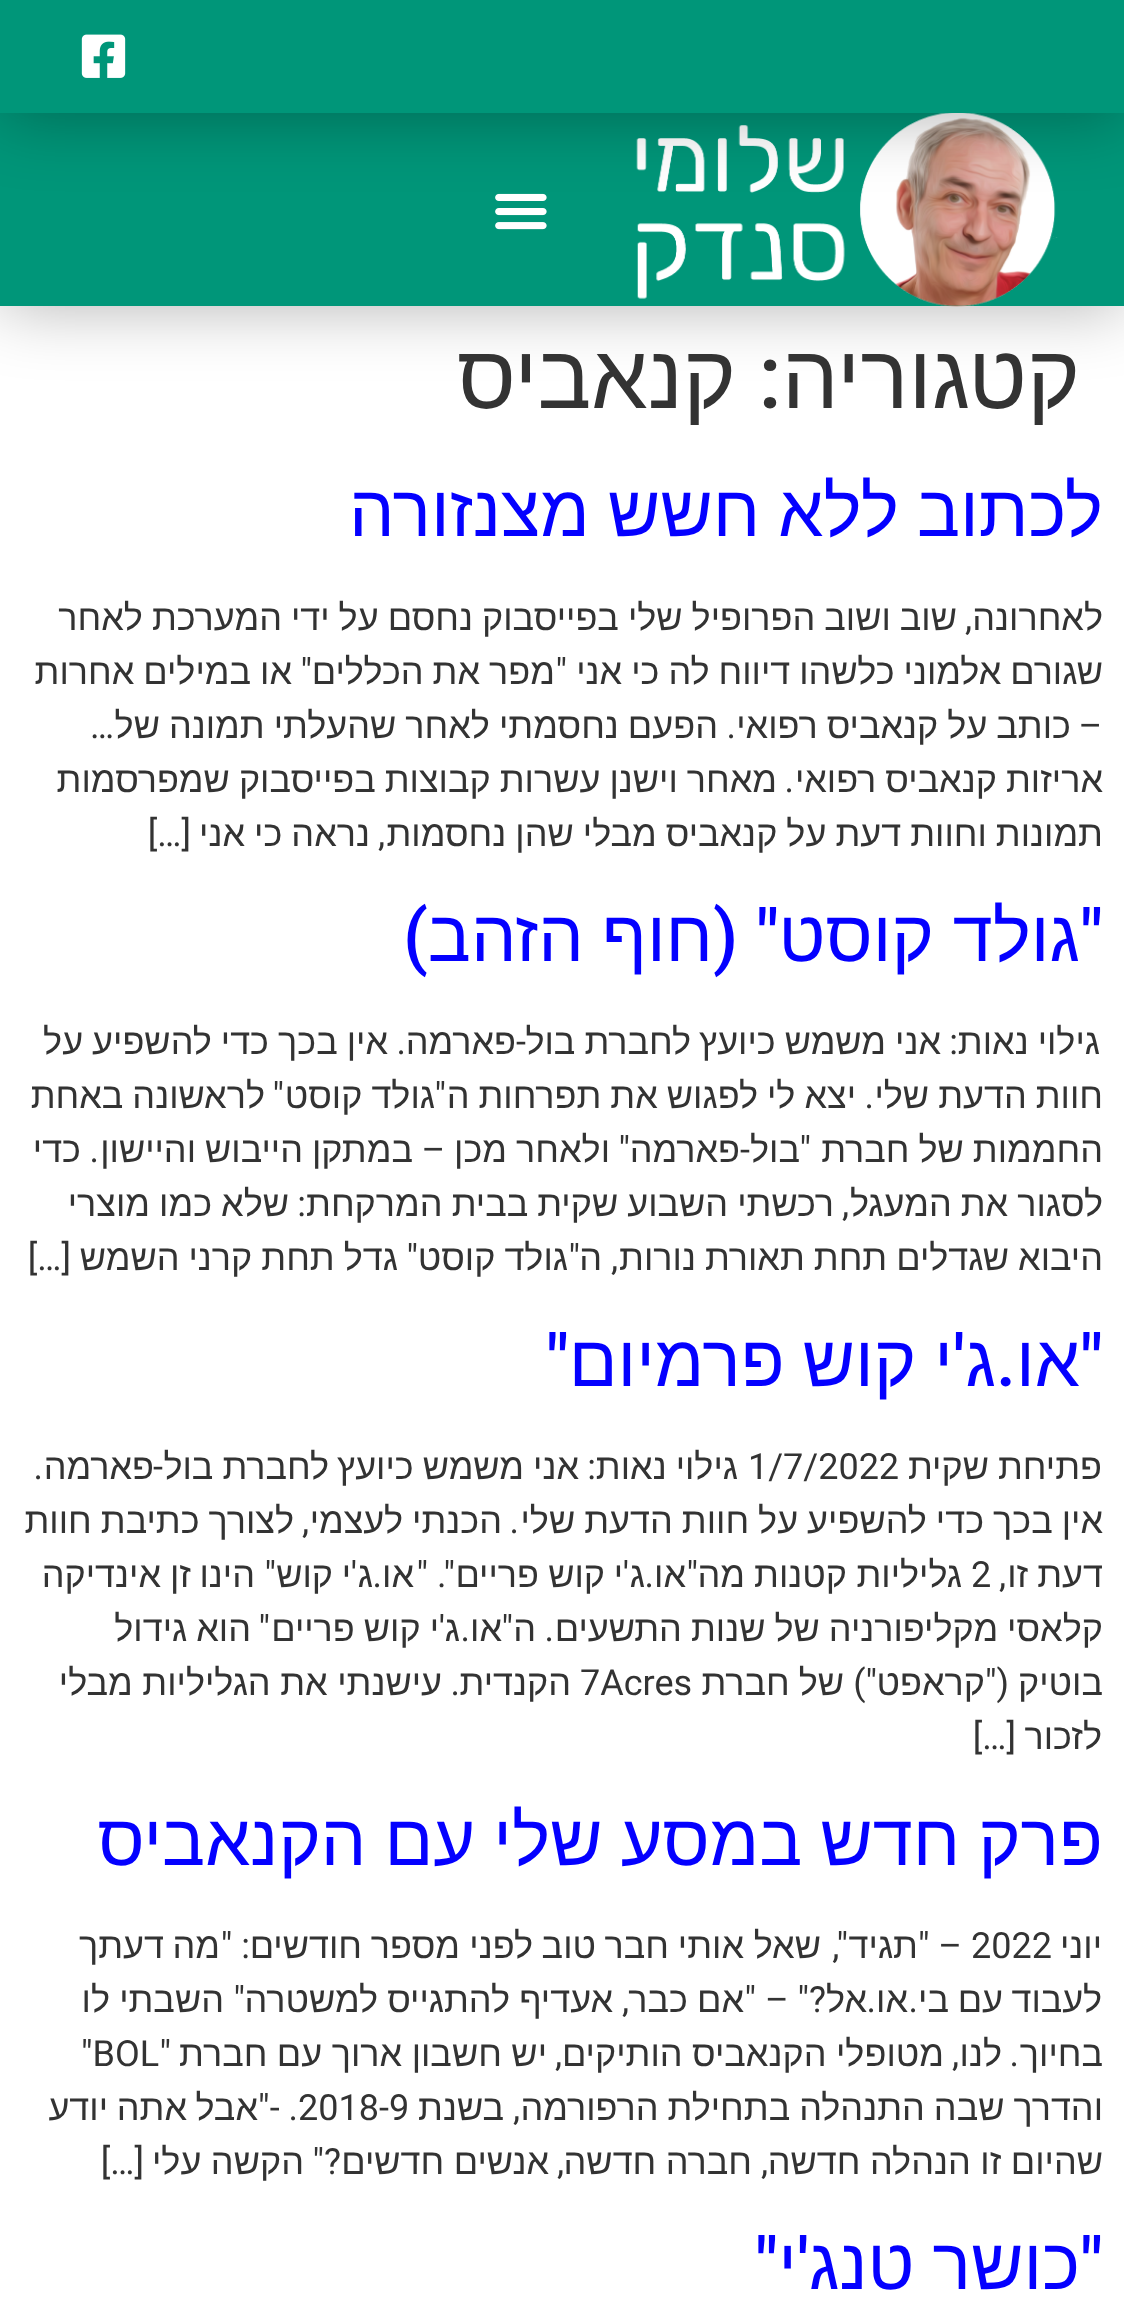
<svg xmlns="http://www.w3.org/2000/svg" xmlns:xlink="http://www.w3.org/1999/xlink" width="1124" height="2304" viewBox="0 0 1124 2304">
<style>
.cls-1{font:90px Liberation Sans;direction:rtl;fill:#333333}
.cls-2{font:500 90px Roboto;direction:rtl;fill:#333333}
.cls-3{font:72px Liberation Sans;direction:rtl;fill:#0400ff}
.cls-4{font:36px Liberation Sans;direction:rtl;fill:#333333}
.cls-5{font:36px Roboto;direction:rtl;fill:#333333}
.cls-6{font:500 72px Roboto;direction:rtl;fill:#0400ff}
.cls-7{font:36px Roboto;fill:#333333}
</style>
<rect width="100%" height="100%" fill="#ffffff"/>
<rect fill="#000000" fill-opacity="0.3" filter="blur(34px)" x="0" y="113" width="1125" height="193"/>
<rect fill="#009679" x="0" y="113" width="1124" height="193"/>
<image xlink:href="image1.png" x="636" y="113" width="422" height="194"/>
<image xlink:href="image2.png" x="495" y="193" width="52" height="37"/>
<rect fill="#000000" fill-opacity="0.3" filter="blur(34px)" x="0" y="5" width="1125" height="112"/>
<rect fill="#009679" x="0" y="0" width="1124" height="113"/>
<image xlink:href="image0.png" x="81" y="34" width="45" height="44"/>
<text class="cls-1" x="1080" y="408">קטגוריה</text>
<text class="cls-2" x="782" y="408">:</text>
<text class="cls-1" x="736" y="408">קנאביס</text>
<text class="cls-3" x="1103" y="536" word-spacing="-2">לכתוב ללא חשש מצנזורה</text>
<text class="cls-4" x="1103" y="630">לאחרונה</text>
<text class="cls-5" x="972" y="630">,</text>
<text class="cls-4" x="957" y="630" word-spacing="-1">שוב ושוב הפרופיל שלי בפייסבוק נחסם על ידי המערכת לאחר</text>
<text class="cls-4" x="1103" y="684" word-spacing="-1">שגורם אלמוני כלשהו דיווח לה כי אני</text>
<text class="cls-5" x="567" y="684">"</text>
<text class="cls-4" x="555" y="684" word-spacing="-1">מפר את הכללים</text>
<text class="cls-5" x="312" y="684">"</text>
<text class="cls-4" x="292" y="684" word-spacing="-1">או במילים אחרות</text>
<text class="cls-5" x="1102" y="738">–</text>
<text class="cls-4" x="1071" y="738" word-spacing="-1">כותב על קנאביס רפואי</text>
<text class="cls-4" x="718" y="738" word-spacing="-1">הפעם נחסמתי לאחר שהעלתי תמונה של</text>
<text class="cls-5" x="736" y="738">.</text>
<text class="cls-5" x="114" y="738">…</text>
<text class="cls-4" x="1103" y="792" word-spacing="-1">אריזות קנאביס רפואי</text>
<text class="cls-5" x="794" y="792">.</text>
<text class="cls-4" x="777" y="792" word-spacing="-1">מאחר וישנן עשרות קבוצות בפייסבוק שמפרסמות</text>
<text class="cls-4" x="1103" y="846" word-spacing="-1">תמונות וחוות דעת על קנאביס מבלי שהן נחסמות</text>
<text class="cls-4" x="370" y="846" word-spacing="-1">נראה כי אני</text>
<text class="cls-5" x="191" y="846">[…]</text>
<text class="cls-5" x="385" y="846">,</text>
<text class="cls-6" x="1103" y="961">"</text>
<text class="cls-3" x="1080" y="961">גולד</text>
<text class="cls-3" x="934" y="961">קוסט</text>
<text class="cls-6" x="779" y="961">" (</text>
<text class="cls-3" x="713" y="961">חוף</text>
<text class="cls-3" x="584" y="961">הזהב</text>
<text class="cls-6" x="428" y="961">)</text>
<text class="cls-4" x="1100" y="1054" word-spacing="-1">גילוי נאות</text>
<text class="cls-5" x="958" y="1054">:</text>
<text class="cls-4" x="941" y="1054" word-spacing="-1">אני משמש כיועץ</text>
<text class="cls-4" x="691" y="1054" word-spacing="-1">לחברת בול</text>
<text class="cls-5" x="526" y="1054">-</text>
<text class="cls-4" x="516" y="1054">פארמה</text>
<text class="cls-4" x="388" y="1054" word-spacing="-1">אין בכך כדי להשפיע על</text>
<text class="cls-5" x="406" y="1054">.</text>
<text class="cls-4" x="1103" y="1108" word-spacing="-1">חוות הדעת שלי</text>
<text class="cls-4" x="856" y="1108" word-spacing="-1">יצא לי לפגוש את תפרחות ה</text>
<text class="cls-5" x="446" y="1108">"</text>
<text class="cls-4" x="435" y="1108" word-spacing="-1">גולד קוסט</text>
<text class="cls-5" x="284" y="1108">"</text>
<text class="cls-4" x="265" y="1108" word-spacing="-1">לראשונה באחת</text>
<text class="cls-5" x="874" y="1108">.</text>
<text class="cls-4" x="1103" y="1162" word-spacing="-1">החממות של חברת</text>
<text class="cls-5" x="811" y="1162">"</text>
<text class="cls-4" x="800" y="1162">בול</text>
<text class="cls-5" x="750" y="1162">-</text>
<text class="cls-4" x="740" y="1162">פארמה</text>
<text class="cls-5" x="630" y="1162">"</text>
<text class="cls-4" x="610" y="1162" word-spacing="-1">ולאחר מכן</text>
<text class="cls-5" x="445" y="1162">–</text>
<text class="cls-4" x="413" y="1162" word-spacing="-1">במתקן הייבוש והיישון</text>
<text class="cls-4" x="81" y="1162">כדי</text>
<text class="cls-5" x="99" y="1162">.</text>
<text class="cls-4" x="1103" y="1216" word-spacing="-1">לסגור את המעגל</text>
<text class="cls-5" x="849" y="1216">,</text>
<text class="cls-4" x="834" y="1216" word-spacing="-1">רכשתי השבוע שקית בבית המרקחת</text>
<text class="cls-5" x="306" y="1216">:</text>
<text class="cls-4" x="289" y="1216" word-spacing="-1">שלא כמו מוצרי</text>
<text class="cls-4" x="1103" y="1270" word-spacing="-1">היבוא שגדלים תחת תאורת נורות</text>
<text class="cls-4" x="602" y="1270">ה</text>
<text class="cls-5" x="580" y="1270">"</text>
<text class="cls-4" x="568" y="1270" word-spacing="-1">גולד קוסט</text>
<text class="cls-5" x="418" y="1270">"</text>
<text class="cls-4" x="398" y="1270" word-spacing="-1">גדל תחת קרני השמש</text>
<text class="cls-5" x="71" y="1270">[…]</text>
<text class="cls-5" x="618" y="1270">,</text>
<text class="cls-6" x="1103" y="1386">"</text>
<text class="cls-3" x="1080" y="1386">או</text>
<text class="cls-6" x="1016" y="1386">.</text>
<text class="cls-3" x="996" y="1386">ג</text>
<text class="cls-6" x="965" y="1386">'</text>
<text class="cls-3" x="953" y="1386" word-spacing="-2">י קוש פרמיום</text>
<text class="cls-6" x="569" y="1386">"</text>
<text class="cls-4" x="1102" y="1479" word-spacing="-1">פתיחת שקית</text>
<text class="cls-7" x="748" y="1479">1/7/2022</text>
<text class="cls-4" x="738" y="1479" word-spacing="-1">גילוי נאות</text>
<text class="cls-5" x="596" y="1479">:</text>
<text class="cls-4" x="579" y="1479" word-spacing="-1">אני משמש כיועץ</text>
<text class="cls-4" x="329" y="1479" word-spacing="-1">לחברת בול</text>
<text class="cls-5" x="163" y="1479">-</text>
<text class="cls-4" x="154" y="1479">פארמה</text>
<text class="cls-5" x="43" y="1479">.</text>
<text class="cls-4" x="1103" y="1533" word-spacing="-1">אין בכך כדי להשפיע על חוות הדעת שלי</text>
<text class="cls-5" x="519" y="1533">.</text>
<text class="cls-4" x="502" y="1533" word-spacing="-1">הכנתי לעצמי</text>
<text class="cls-5" x="309" y="1533">,</text>
<text class="cls-4" x="294" y="1533" word-spacing="-1">לצורך כתיבת חוות</text>
<text class="cls-4" x="1103" y="1587" word-spacing="-1">דעת זו</text>
<text class="cls-5" x="1006" y="1587">,</text>
<text class="cls-7" x="971" y="1587">2</text>
<text class="cls-4" x="962" y="1587">גליליות</text>
<text class="cls-4" x="847" y="1587">קטנות</text>
<text class="cls-4" x="745" y="1587">מה</text>
<text class="cls-5" x="698" y="1587">"</text>
<text class="cls-4" x="686" y="1587">או</text>
<text class="cls-5" x="654" y="1587">.</text>
<text class="cls-4" x="645" y="1587">ג</text>
<text class="cls-5" x="629" y="1587">'</text>
<text class="cls-4" x="623" y="1587">י</text>
<text class="cls-4" x="605" y="1587">קוש</text>
<text class="cls-4" x="539" y="1587">פריים</text>
<text class="cls-5" x="455" y="1587">". "</text>
<text class="cls-4" x="414" y="1587">או</text>
<text class="cls-5" x="382" y="1587">.</text>
<text class="cls-4" x="373" y="1587">ג</text>
<text class="cls-5" x="357" y="1587">'</text>
<text class="cls-4" x="351" y="1587">י</text>
<text class="cls-4" x="333" y="1587">קוש</text>
<text class="cls-5" x="276" y="1587">"</text>
<text class="cls-4" x="255" y="1587">הינו</text>
<text class="cls-4" x="191" y="1587">זן</text>
<text class="cls-4" x="161" y="1587">אינדיקה</text>
<text class="cls-4" x="1103" y="1641" word-spacing="-1">קלאסי מקליפורניה של שנות התשעים</text>
<text class="cls-5" x="554" y="1641">.</text>
<text class="cls-4" x="536" y="1641">ה</text>
<text class="cls-5" x="513" y="1641">"</text>
<text class="cls-4" x="502" y="1641">או</text>
<text class="cls-5" x="470" y="1641">.</text>
<text class="cls-4" x="460" y="1641">ג</text>
<text class="cls-5" x="445" y="1641">'</text>
<text class="cls-4" x="439" y="1641" word-spacing="-1">י קוש פריים</text>
<text class="cls-5" x="270" y="1641">"</text>
<text class="cls-4" x="251" y="1641" word-spacing="-1">הוא גידול</text>
<text class="cls-4" x="1103" y="1695">בוטיק</text>
<text class="cls-5" x="1009" y="1695">("</text>
<text class="cls-4" x="985" y="1695">קראפט</text>
<text class="cls-5" x="877" y="1695">")</text>
<text class="cls-4" x="844" y="1695" word-spacing="-1">של חברת</text>
<text class="cls-7" x="580" y="1695">7Acres</text>
<text class="cls-4" x="571" y="1695">הקנדית</text>
<text class="cls-5" x="460" y="1695">.</text>
<text class="cls-4" x="442" y="1695" word-spacing="-0.5">עישנתי את הגליליות מבלי</text>
<text class="cls-4" x="1102" y="1749">לזכור</text>
<text class="cls-5" x="1016" y="1749">[…]</text>
<text class="cls-3" x="1103" y="1865" word-spacing="-2">פרק חדש במסע שלי עם הקנאביס</text>
<text class="cls-4" x="1102" y="1958">יוני</text>
<text class="cls-7" x="971" y="1958">2022</text>
<text class="cls-5" x="962" y="1958">– "</text>
<text class="cls-4" x="918" y="1958">תגיד</text>
<text class="cls-5" x="848" y="1958">",</text>
<text class="cls-4" x="821" y="1958">שאל</text>
<text class="cls-4" x="744" y="1958">אותי</text>
<text class="cls-4" x="669" y="1958">חבר</text>
<text class="cls-4" x="596" y="1958">טוב</text>
<text class="cls-4" x="533" y="1958">לפני</text>
<text class="cls-4" x="460" y="1958">מספר</text>
<text class="cls-4" x="362" y="1958">חודשים</text>
<text class="cls-5" x="250" y="1958">: "</text>
<text class="cls-4" x="220" y="1958">מה</text>
<text class="cls-4" x="164" y="1958">דעתך</text>
<text class="cls-4" x="1102" y="2012">לעבוד</text>
<text class="cls-4" x="1003" y="2012">עם</text>
<text class="cls-4" x="949" y="2012">בי</text>
<text class="cls-5" x="918" y="2012">.</text>
<text class="cls-4" x="908" y="2012">או</text>
<text class="cls-5" x="876" y="2012">.</text>
<text class="cls-4" x="867" y="2012">אל</text>
<text class="cls-5" x="826" y="2012">?" – "</text>
<text class="cls-4" x="744" y="2012">אם</text>
<text class="cls-4" x="688" y="2012">כבר</text>
<text class="cls-5" x="629" y="2012">,</text>
<text class="cls-4" x="613" y="2012">אעדיף</text>
<text class="cls-4" x="510" y="2012">להתגייס</text>
<text class="cls-4" x="378" y="2012">למשטרה</text>
<text class="cls-5" x="245" y="2012">"</text>
<text class="cls-4" x="224" y="2012">השבתי</text>
<text class="cls-4" x="110" y="2012">לו</text>
<text class="cls-4" x="1103" y="2066">בחיוך</text>
<text class="cls-5" x="1019" y="2066">.</text>
<text class="cls-4" x="1002" y="2066">לנו</text>
<text class="cls-5" x="959" y="2066">,</text>
<text class="cls-4" x="944" y="2066" word-spacing="-0.5">מטופלי הקנאביס הותיקים</text>
<text class="cls-5" x="562" y="2066">,</text>
<text class="cls-4" x="547" y="2066" word-spacing="-0.5">יש חשבון ארוך עם חברת</text>
<text class="cls-5" x="171" y="2066">"</text>
<text class="cls-7" x="81" y="2066">"BOL</text>
<text class="cls-4" x="1103" y="2120" word-spacing="-1">והדרך שבה התנהלה בתחילת הרפורמה</text>
<text class="cls-5" x="520" y="2120">,</text>
<text class="cls-4" x="504" y="2120">בשנת</text>
<text class="cls-7" x="298" y="2120">2018-9</text>
<text class="cls-5" x="298" y="2120">. -"</text>
<text class="cls-4" x="258" y="2120">אבל</text>
<text class="cls-4" x="187" y="2120">אתה</text>
<text class="cls-4" x="108" y="2120">יודע</text>
<text class="cls-4" x="1103" y="2174" word-spacing="-0.5">שהיום זו הנהלה חדשה</text>
<text class="cls-5" x="768" y="2174">,</text>
<text class="cls-4" x="752" y="2174" word-spacing="-0.5">חברה חדשה</text>
<text class="cls-5" x="564" y="2174">,</text>
<text class="cls-4" x="549" y="2174" word-spacing="-0.5">אנשים חדשים</text>
<text class="cls-5" x="341" y="2174">?"</text>
<text class="cls-4" x="304" y="2174" word-spacing="-0.5">הקשה עלי</text>
<text class="cls-5" x="144" y="2174">[…]</text>
<text class="cls-6" x="1103" y="2289">"</text>
<text class="cls-3" x="1080" y="2289" word-spacing="-2">כושר טנג</text>
<text class="cls-6" x="809" y="2289">'</text>
<text class="cls-3" x="797" y="2289">י</text>
<text class="cls-6" x="778" y="2289">"</text>
</svg>
